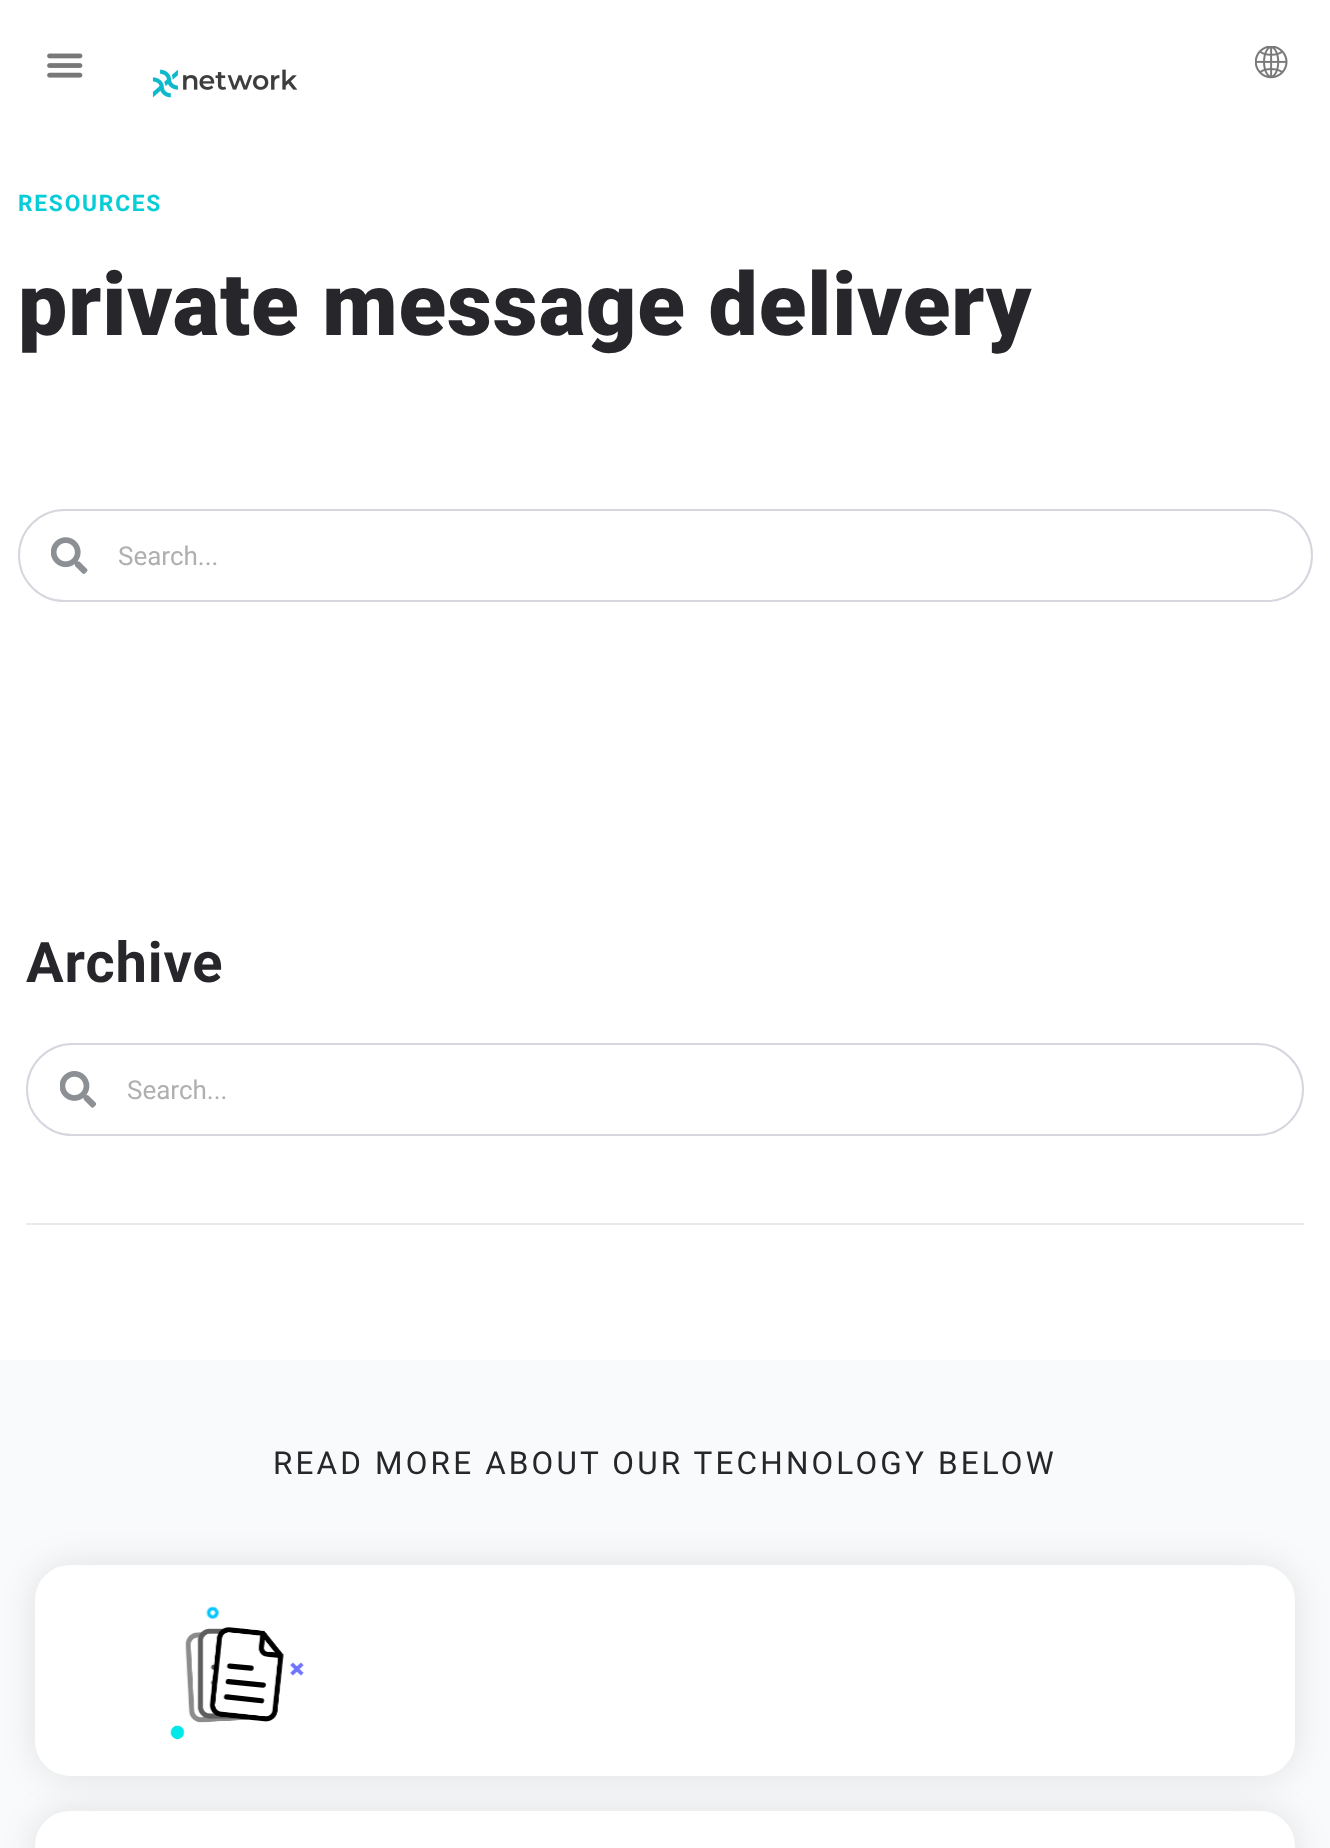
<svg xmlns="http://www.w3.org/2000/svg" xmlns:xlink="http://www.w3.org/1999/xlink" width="1330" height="1848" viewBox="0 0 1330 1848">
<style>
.cls-1{font:bold 22.75px Roboto;letter-spacing:1.75px;fill:#08cdd7}
.cls-2{font:900 87.5px Roboto;letter-spacing:0.9px;fill:#27272b}
.cls-3{font:26px Roboto;fill:#afafaf}
.cls-4{font:bold 56px Roboto;letter-spacing:0.9px;fill:#27272b}
.cls-5{font:31.5px Roboto;letter-spacing:3.15px;fill:#27272b}
</style>
<rect width="100%" height="100%" fill="#ffffff"/>
<image xlink:href="image0.png" x="47" y="53" width="36" height="25"/>
<image xlink:href="image1.png" x="1255" y="46" width="33" height="33"/>
<image xlink:href="image2.png" x="152" y="69" width="146" height="29"/>
<rect fill="none" stroke="#d6d6de" stroke-width="2" x="19" y="510" width="1293" height="91" rx="45.5"/>
<image xlink:href="image3.png" x="51" y="537" width="37" height="37"/>
<rect fill="none" stroke="#d6d6de" stroke-width="2" x="27" y="1044" width="1276" height="91" rx="45.5"/>
<image xlink:href="image4.png" x="60" y="1071" width="36" height="37"/>
<rect fill="#eaeaea" x="26" y="1223" width="1278" height="2"/>
<rect fill="#f9fafb" x="0" y="1360" width="1330" height="488"/>
<rect fill="#000000" fill-opacity="0.1" filter="blur(17.5px)" x="35" y="1565" width="1260" height="211" rx="35"/>
<rect fill="#ffffff" stroke="#ffffff" stroke-width="9" x="39.5" y="1569.5" width="1251" height="202" rx="30.5"/>
<image xlink:href="image5.png" x="170" y="1606" width="134" height="134"/>
<rect fill="#000000" fill-opacity="0.1" filter="blur(17.5px)" x="35" y="1811" width="1260" height="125" rx="35"/>
<rect fill="#ffffff" stroke="#ffffff" stroke-width="9" x="39.5" y="1815.5" width="1251" height="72" rx="30.5"/>
<text class="cls-1" x="18" y="211">RESOURCES</text>
<text class="cls-2" x="18" y="335">private message delivery</text>
<text class="cls-3" x="118" y="565">Search...</text>
<text class="cls-4" x="26" y="982">Archive</text>
<text class="cls-3" x="127" y="1099">Search...</text>
<text class="cls-5" x="273" y="1474">READ MORE ABOUT OUR TECHNOLOGY BELOW</text>
</svg>
